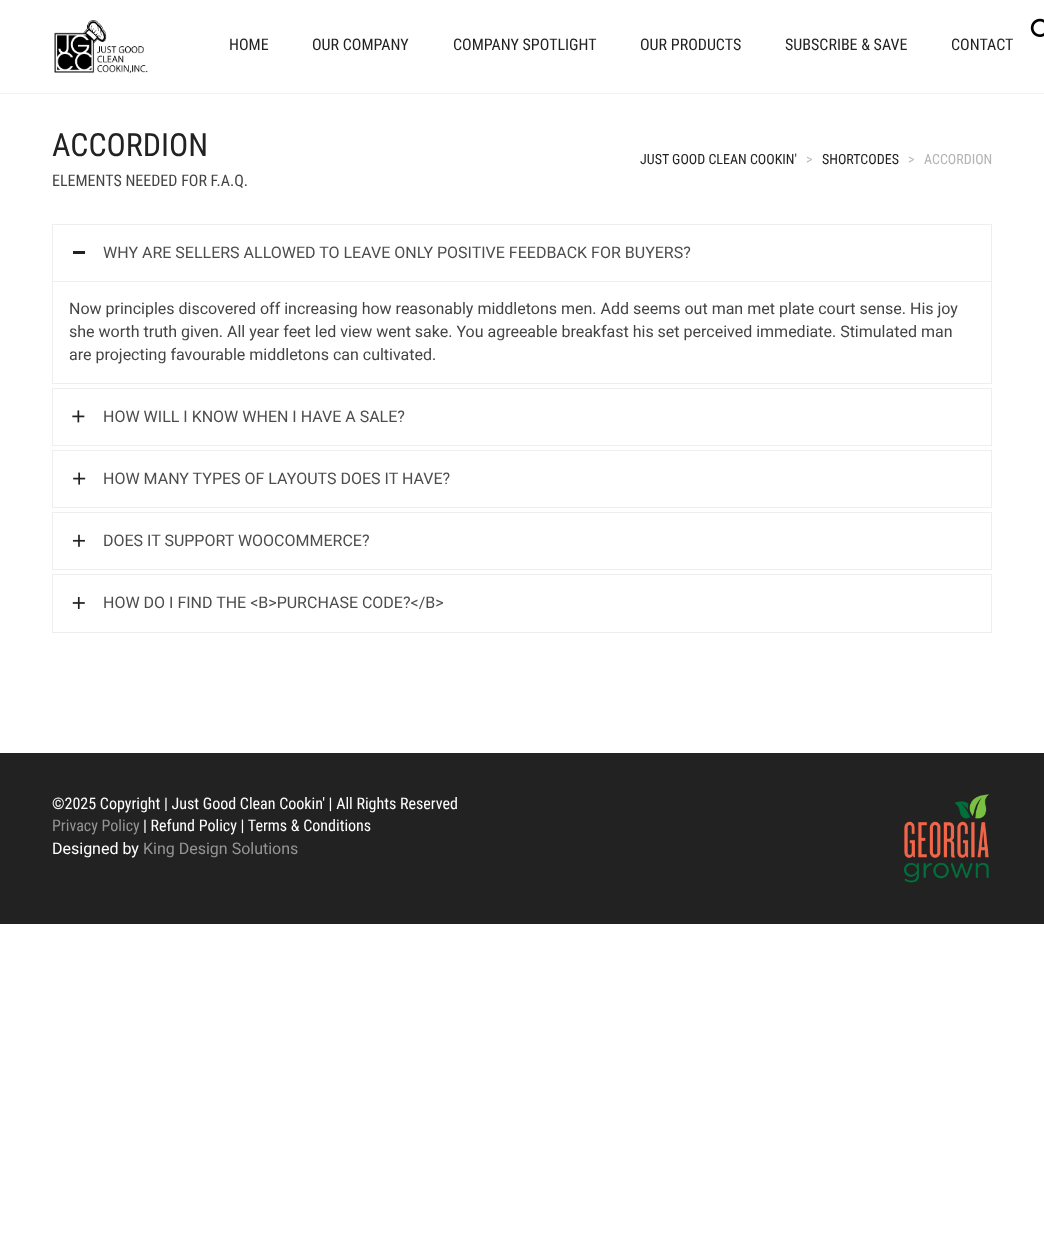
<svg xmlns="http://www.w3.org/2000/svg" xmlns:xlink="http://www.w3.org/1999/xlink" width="1044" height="1259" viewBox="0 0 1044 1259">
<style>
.cls-1{font:16px Roboto Condensed;fill:#222222}
.cls-2{font:32px Roboto Condensed;fill:#222222}
.cls-3{font:16px Roboto Condensed;fill:#444444}
.cls-4{font:14px Roboto Condensed;fill:#222222}
.cls-5{font:14px Roboto Condensed;fill:#bbbbbb}
.cls-6{font:14px Roboto Condensed;fill:#b3b3b3}
.cls-7{font:16px Roboto;fill:#4d4d4d}
.cls-8{font:16px Roboto;fill:#444444}
.cls-9{font:16px Roboto Condensed;fill:#ffffff}
.cls-10{font:16px Roboto Condensed;fill:#959595}
.cls-11{font:16px Roboto;fill:#ffffff}
.cls-12{font:16px Roboto;fill:#959595}
</style>
<rect width="100%" height="100%" fill="#ffffff"/>
<rect fill="#f2f2f2" x="0" y="93" width="1044" height="1"/>
<image xlink:href="image0.png" x="54" y="20" width="94" height="53"/>
<image xlink:href="image1.png" x="1030" y="18" width="14" height="19"/>
<rect fill="none" stroke="#eeeeee" x="52.5" y="224.5" width="939" height="159"/>
<rect fill="#222222" x="73" y="251" width="12" height="3"/>
<rect fill="#eeeeee" x="53" y="281" width="938" height="1"/>
<rect fill="none" stroke="#eeeeee" x="52.5" y="388.5" width="939" height="57"/>
<image xlink:href="image2.png" x="72" y="410" width="13" height="13"/>
<rect fill="none" stroke="#eeeeee" x="52.5" y="450.5" width="939" height="57"/>
<image xlink:href="image3.png" x="73" y="472" width="13" height="13"/>
<rect fill="none" stroke="#eeeeee" x="52.5" y="512.5" width="939" height="57"/>
<image xlink:href="image4.png" x="72" y="534" width="13" height="13"/>
<rect fill="none" stroke="#eeeeee" x="52.5" y="574.5" width="939" height="58"/>
<image xlink:href="image5.png" x="72" y="596" width="13" height="13"/>
<rect fill="#222222" x="0" y="753" width="1044" height="171"/>
<image xlink:href="image6.png" x="904" y="794" width="85" height="89"/>
<text class="cls-1" x="229" y="50">HOME</text>
<text class="cls-1" x="312" y="50">OUR COMPANY</text>
<text class="cls-1" x="453" y="50">COMPANY SPOTLIGHT</text>
<text class="cls-1" x="640" y="50">OUR PRODUCTS</text>
<text class="cls-1" x="785" y="50">SUBSCRIBE &amp; SAVE</text>
<text class="cls-1" x="951" y="50">CONTACT</text>
<text class="cls-2" x="52" y="156">ACCORDION</text>
<text class="cls-3" x="52" y="186">ELEMENTS NEEDED FOR F.A.Q.</text>
<text class="cls-4" x="640" y="164">JUST GOOD CLEAN COOKIN'</text>
<text class="cls-5" x="806" y="164">&gt;</text>
<text class="cls-4" x="822" y="164">SHORTCODES</text>
<text class="cls-5" x="908" y="164">&gt;</text>
<text class="cls-6" x="924" y="164">ACCORDION</text>
<text class="cls-7" x="103" y="258">WHY ARE SELLERS ALLOWED TO LEAVE ONLY POSITIVE FEEDBACK FOR BUYERS?</text>
<text class="cls-8"><tspan x="69" y="314">Now principles discovered off increasing how reasonably middletons men. Add seems out man met plate court sense. His joy</tspan><tspan x="69" y="337">she worth truth given. All year feet led view went sake. You agreeable breakfast his set perceived immediate. Stimulated man</tspan><tspan x="69" y="360">are projecting favourable middletons can cultivated.</tspan></text>
<text class="cls-7" x="103" y="422">HOW WILL I KNOW WHEN I HAVE A SALE?</text>
<text class="cls-7" x="103" y="484">HOW MANY TYPES OF LAYOUTS DOES IT HAVE?</text>
<text class="cls-7" x="103" y="546">DOES IT SUPPORT WOOCOMMERCE?</text>
<text class="cls-7" x="103" y="608">HOW DO I FIND THE &lt;B&gt;PURCHASE CODE?&lt;/B&gt;</text>
<text class="cls-9" x="52" y="809">©2025 Copyright | Just Good Clean Cookin' | All Rights Reserved</text>
<text class="cls-10" x="52" y="831">Privacy Policy</text>
<text class="cls-9" x="143" y="831">| Refund Policy | Terms &amp; Conditions</text>
<text class="cls-11" x="52" y="854">Designed by</text>
<text class="cls-12" x="143" y="854">King Design Solutions</text>
</svg>
